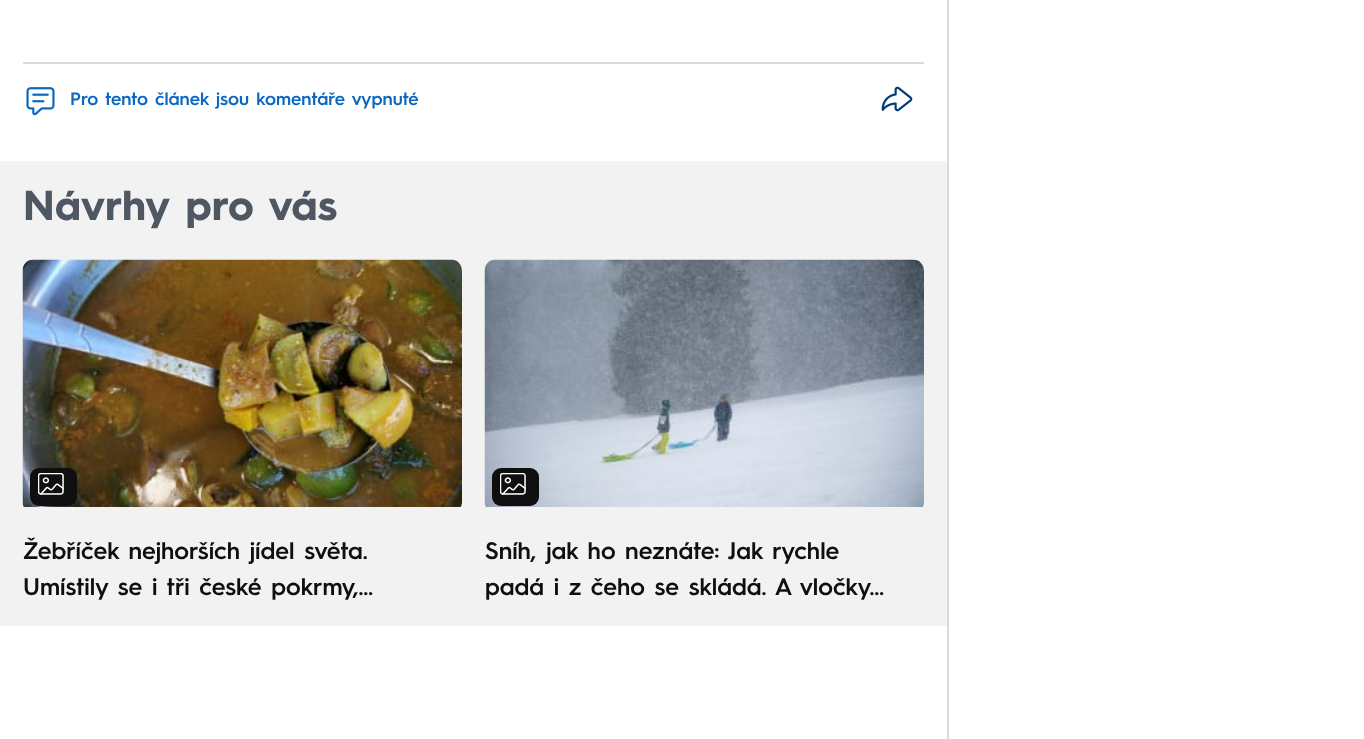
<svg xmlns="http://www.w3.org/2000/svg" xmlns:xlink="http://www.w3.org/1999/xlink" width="1364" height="739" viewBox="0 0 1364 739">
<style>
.cls-1{font:600 18px 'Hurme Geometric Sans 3';fill:#0b68c1}
.cls-2{font:bold 42px 'Hurme Geometric Sans 3';fill:#4f5862}
.cls-3{font:600 24px 'Hurme Geometric Sans 3';fill:#0f0f10}
</style>
<rect width="100%" height="100%" fill="#ffffff"/>
<rect fill="#dadada" x="23" y="62" width="901" height="2"/>
<image xlink:href="image0.png" x="26" y="87" width="29" height="29"/>
<image xlink:href="image1.png" x="881" y="86" width="32" height="26"/>
<rect fill="#f2f2f2" x="0" y="161" width="947" height="465"/>
<image xlink:href="image2.png" x="22" y="259" width="440" height="248"/>
<rect fill="#0f0f10" x="30" y="468" width="47" height="38" rx="9"/>
<image xlink:href="image3.png" x="38" y="473" width="26" height="22"/>
<image xlink:href="image4.png" x="484" y="259" width="440" height="248"/>
<rect fill="#0f0f10" x="492" y="468" width="47" height="38" rx="9"/>
<image xlink:href="image3.png" x="500" y="473" width="26" height="22"/>
<rect fill="#dadada" x="947" y="0" width="2" height="739"/>
<text class="cls-1" x="70" y="105">Pro tento článek jsou komentáře vypnuté</text>
<text class="cls-2" x="23" y="220">Návrhy pro vás</text>
<text class="cls-3"><tspan x="23" y="559">Žebříček nejhorších jídel světa.</tspan><tspan x="23" y="595">Umístily se i tři české pokrmy,…</tspan></text>
<text class="cls-3"><tspan x="485" y="559">Sníh, jak ho neznáte: Jak rychle</tspan><tspan x="485" y="595">padá i z čeho se skládá. A vločky…</tspan></text>
</svg>
